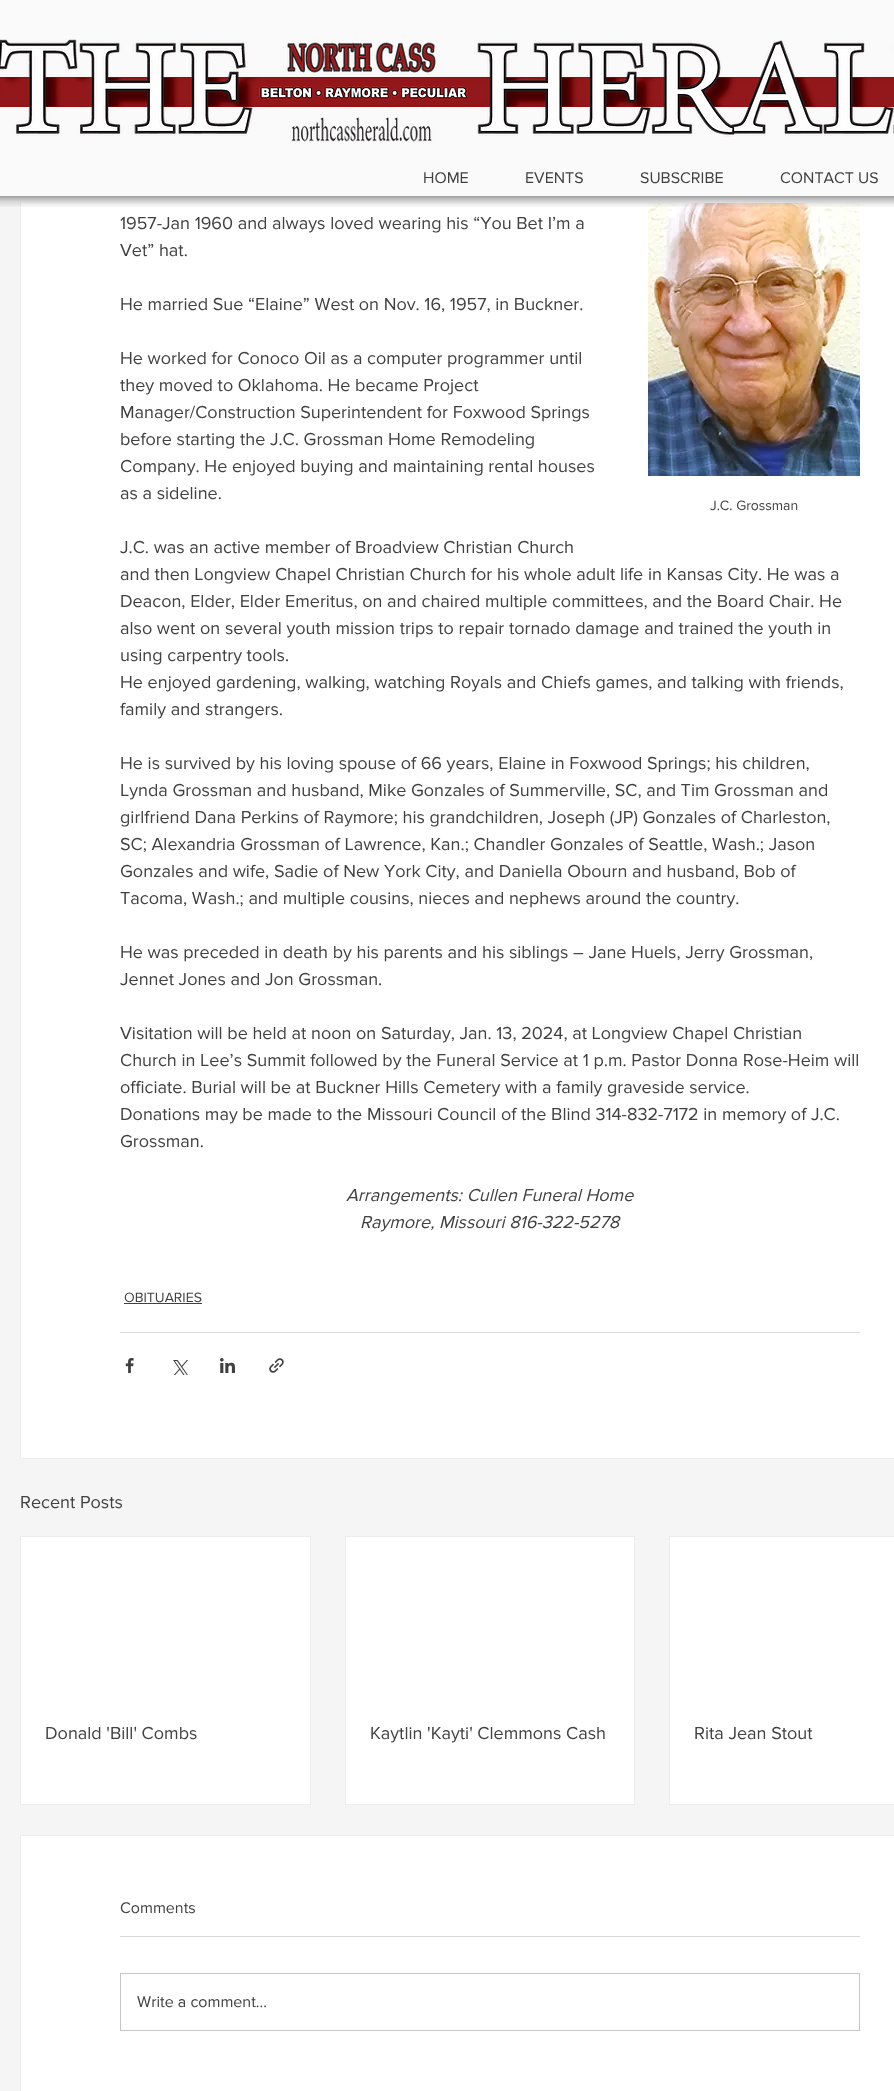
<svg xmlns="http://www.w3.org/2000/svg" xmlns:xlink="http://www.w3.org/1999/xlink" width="894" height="2091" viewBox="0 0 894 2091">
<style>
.cls-1{font:16px 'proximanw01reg';fill:#414141}
.cls-2{font:18px 'proximanw01reg';fill:#414141}
.cls-3{font:14px 'proximanw01reg';fill:#414141}
.cls-4{font:italic 18px 'proximanw01reg';fill:#414141}
</style>
<rect width="100%" height="100%" fill="#f5f5f5"/>
<rect fill="#ffffff" x="21" y="203" width="873" height="1255"/>
<rect fill="none" stroke="#eeecec" x="20.5" y="-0.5" width="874" height="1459"/>
<rect fill="#fafafa" x="0" y="0" width="894" height="203"/>
<rect fill="#990606" x="0" y="77" width="894" height="30"/>
<image xlink:href="image0.png" x="0" y="39" width="894" height="103"/>
<image xlink:href="image2.png" x="648" y="203" width="212" height="273"/>
<image xlink:href="image1.png" x="0" y="196" width="894" height="11"/>
<rect fill="#414141" x="124" y="1303" width="78" height="1"/>
<rect fill="#d9d9d9" x="120" y="1332" width="740" height="1"/>
<image xlink:href="image3.png" x="125" y="1358" width="9" height="15"/>
<image xlink:href="image4.png" x="173" y="1360" width="15" height="15"/>
<image xlink:href="image5.png" x="220" y="1358" width="15" height="15"/>
<image xlink:href="image6.png" x="269" y="1358" width="15" height="15"/>
<rect fill="#ffffff" stroke="#eeecec" x="20.5" y="1536.5" width="290" height="268"/>
<rect fill="#ffffff" stroke="#eeecec" x="345.5" y="1536.5" width="289" height="268"/>
<rect fill="#ffffff" stroke="#eeecec" x="669.5" y="1536.5" width="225" height="268"/>
<rect fill="#ffffff" stroke="#eeecec" x="20.5" y="1835.5" width="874" height="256"/>
<rect fill="#d9d9d9" x="120" y="1936" width="740" height="1"/>
<rect fill="none" stroke="#c6c6c6" x="120.5" y="1973.5" width="739" height="57"/>
<text class="cls-1" x="423" y="183">HOME</text>
<text class="cls-1" x="525" y="183">EVENTS</text>
<text class="cls-1" x="640" y="183">SUBSCRIBE</text>
<text class="cls-1" x="780" y="183">CONTACT US</text>
<text class="cls-2"><tspan x="120" y="229">1957-Jan 1960 and always loved wearing his “You Bet I’m a</tspan><tspan x="120" y="256">Vet” hat.</tspan></text>
<text class="cls-2" x="120" y="310">He married Sue “Elaine” West on Nov. 16, 1957, in Buckner.</text>
<text class="cls-2"><tspan x="120" y="364">He worked for Conoco Oil as a computer programmer until</tspan><tspan x="120" y="391">they moved to Oklahoma. He became Project</tspan><tspan x="120" y="418">Manager/Construction Superintendent for Foxwood Springs</tspan><tspan x="120" y="445">before starting the J.C. Grossman Home Remodeling</tspan><tspan x="120" y="472">Company. He enjoyed buying and maintaining rental houses</tspan><tspan x="120" y="499">as a sideline.</tspan></text>
<text class="cls-3" x="710" y="510">J.C. Grossman</text>
<text class="cls-2"><tspan x="120" y="553">J.C. was an active member of Broadview Christian Church</tspan><tspan x="120" y="580">and then Longview Chapel Christian Church for his whole adult life in Kansas City. He was a</tspan><tspan x="120" y="607">Deacon, Elder, Elder Emeritus, on and chaired multiple committees, and the Board Chair. He</tspan><tspan x="120" y="634">also went on several youth mission trips to repair tornado damage and trained the youth in</tspan><tspan x="120" y="661">using carpentry tools.</tspan><tspan x="120" y="688">He enjoyed gardening, walking, watching Royals and Chiefs games, and talking with friends,</tspan><tspan x="120" y="715">family and strangers.</tspan></text>
<text class="cls-2"><tspan x="120" y="769">He is survived by his loving spouse of 66 years, Elaine in Foxwood Springs; his children,</tspan><tspan x="120" y="796">Lynda Grossman and husband, Mike Gonzales of Summerville, SC, and Tim Grossman and</tspan><tspan x="120" y="823">girlfriend Dana Perkins of Raymore; his grandchildren, Joseph (JP) Gonzales of Charleston,</tspan><tspan x="120" y="850">SC; Alexandria Grossman of Lawrence, Kan.; Chandler Gonzales of Seattle, Wash.; Jason</tspan><tspan x="120" y="877">Gonzales and wife, Sadie of New York City, and Daniella Obourn and husband, Bob of</tspan><tspan x="120" y="904">Tacoma, Wash.; and multiple cousins, nieces and nephews around the country.</tspan></text>
<text class="cls-2"><tspan x="120" y="958">He was preceded in death by his parents and his siblings – Jane Huels, Jerry Grossman,</tspan><tspan x="120" y="985">Jennet Jones and Jon Grossman.</tspan></text>
<text class="cls-2"><tspan x="120" y="1039">Visitation will be held at noon on Saturday, Jan. 13, 2024, at Longview Chapel Christian</tspan><tspan x="120" y="1066">Church in Lee’s Summit followed by the Funeral Service at 1 p.m. Pastor Donna Rose-Heim will</tspan><tspan x="120" y="1093">officiate. Burial will be at Buckner Hills Cemetery with a family graveside service.</tspan><tspan x="120" y="1120">Donations may be made to the Missouri Council of the Blind 314-832-7172 in memory of J.C.</tspan><tspan x="120" y="1147">Grossman.</tspan></text>
<text class="cls-4" x="346" y="1201">Arrangements: Cullen Funeral Home</text>
<text class="cls-4" x="360" y="1228">Raymore, Missouri 816-322-5278</text>
<text class="cls-3" x="124" y="1302">OBITUARIES</text>
<text class="cls-2" x="20" y="1508">Recent Posts</text>
<text class="cls-2" x="45" y="1739">Donald 'Bill' Combs</text>
<text class="cls-2" x="370" y="1739">Kaytlin 'Kayti' Clemmons Cash</text>
<text class="cls-2" x="694" y="1739">Rita Jean Stout</text>
<text class="cls-1" x="120" y="1913">Comments</text>
<text class="cls-1" x="137" y="2007">Write a comment...</text>
</svg>
